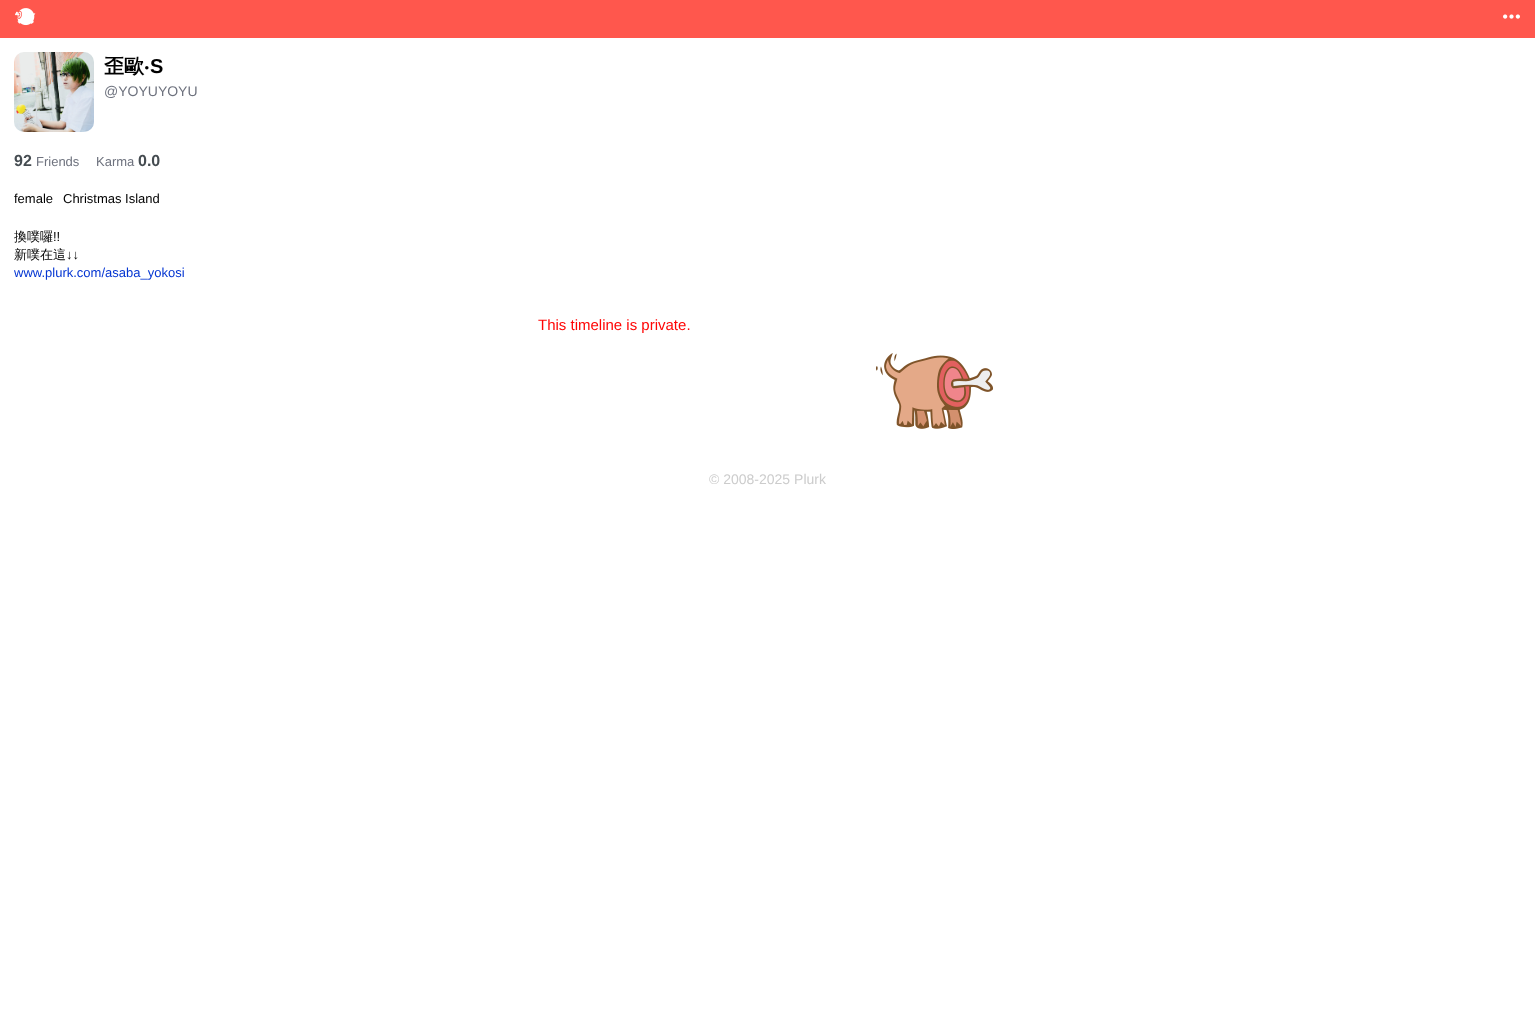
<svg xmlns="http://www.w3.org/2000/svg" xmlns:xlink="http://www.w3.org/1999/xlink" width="1535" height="1031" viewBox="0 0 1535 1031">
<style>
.cls-1{font:bold 20px WenQuanYi Zen Hei;fill:#000000}
.cls-2{font:bold 20px Noto Sans;fill:#000000}
.cls-3{font:bold 20px Liberation Sans;fill:#000000}
.cls-4{font:14px Liberation Sans;fill:#6e727e}
.cls-5{font:bold 16px Liberation Sans;fill:#454c51}
.cls-6{font:13px Liberation Sans;fill:#6e727e}
.cls-7{font:13px Liberation Sans;fill:#000000}
.cls-8{font:500 13px WenQuanYi Zen Hei;fill:#000000}
.cls-9{font:13px Liberation Sans;fill:#0435d2}
.cls-10{font:15px Liberation Sans;fill:#ff0505}
.cls-11{font:14px Liberation Sans;fill:#cccccc}
</style>
<rect width="100%" height="100%" fill="#ffffff"/>
<rect fill="#ff574d" x="0" y="0" width="1535" height="38"/>
<image xlink:href="image0.png" x="15" y="8" width="21" height="18"/>
<image xlink:href="image1.png" x="1503" y="14" width="17" height="5"/>
<image xlink:href="image2.png" x="14" y="52" width="80" height="80"/>
<image xlink:href="image3.png" x="876" y="353" width="117" height="76"/>
<text class="cls-1" x="104" y="73">歪歐</text>
<text class="cls-2" x="144" y="73">‧</text>
<text class="cls-3" x="150" y="73">S</text>
<text class="cls-4" x="104" y="96">@YOYUYOYU</text>
<text class="cls-5" x="14" y="166">92</text>
<text class="cls-6" x="36" y="166">Friends</text>
<text class="cls-6" x="96" y="166">Karma</text>
<text class="cls-5" x="138" y="166">0.0</text>
<text class="cls-7" x="14" y="203">female</text>
<text class="cls-7" x="63" y="203">Christmas Island</text>
<text class="cls-8" x="14" y="241">換噗囉</text>
<text class="cls-7" x="53" y="241">!!</text>
<text class="cls-8" x="14" y="259">新噗在這</text>
<text class="cls-7" x="66" y="259">↓↓</text>
<text class="cls-9" x="14" y="277">www.plurk.com/asaba_yokosi</text>
<text class="cls-10" x="538" y="330">This timeline is private.</text>
<text class="cls-11" x="709" y="484">© 2008-2025 Plurk</text>
</svg>
